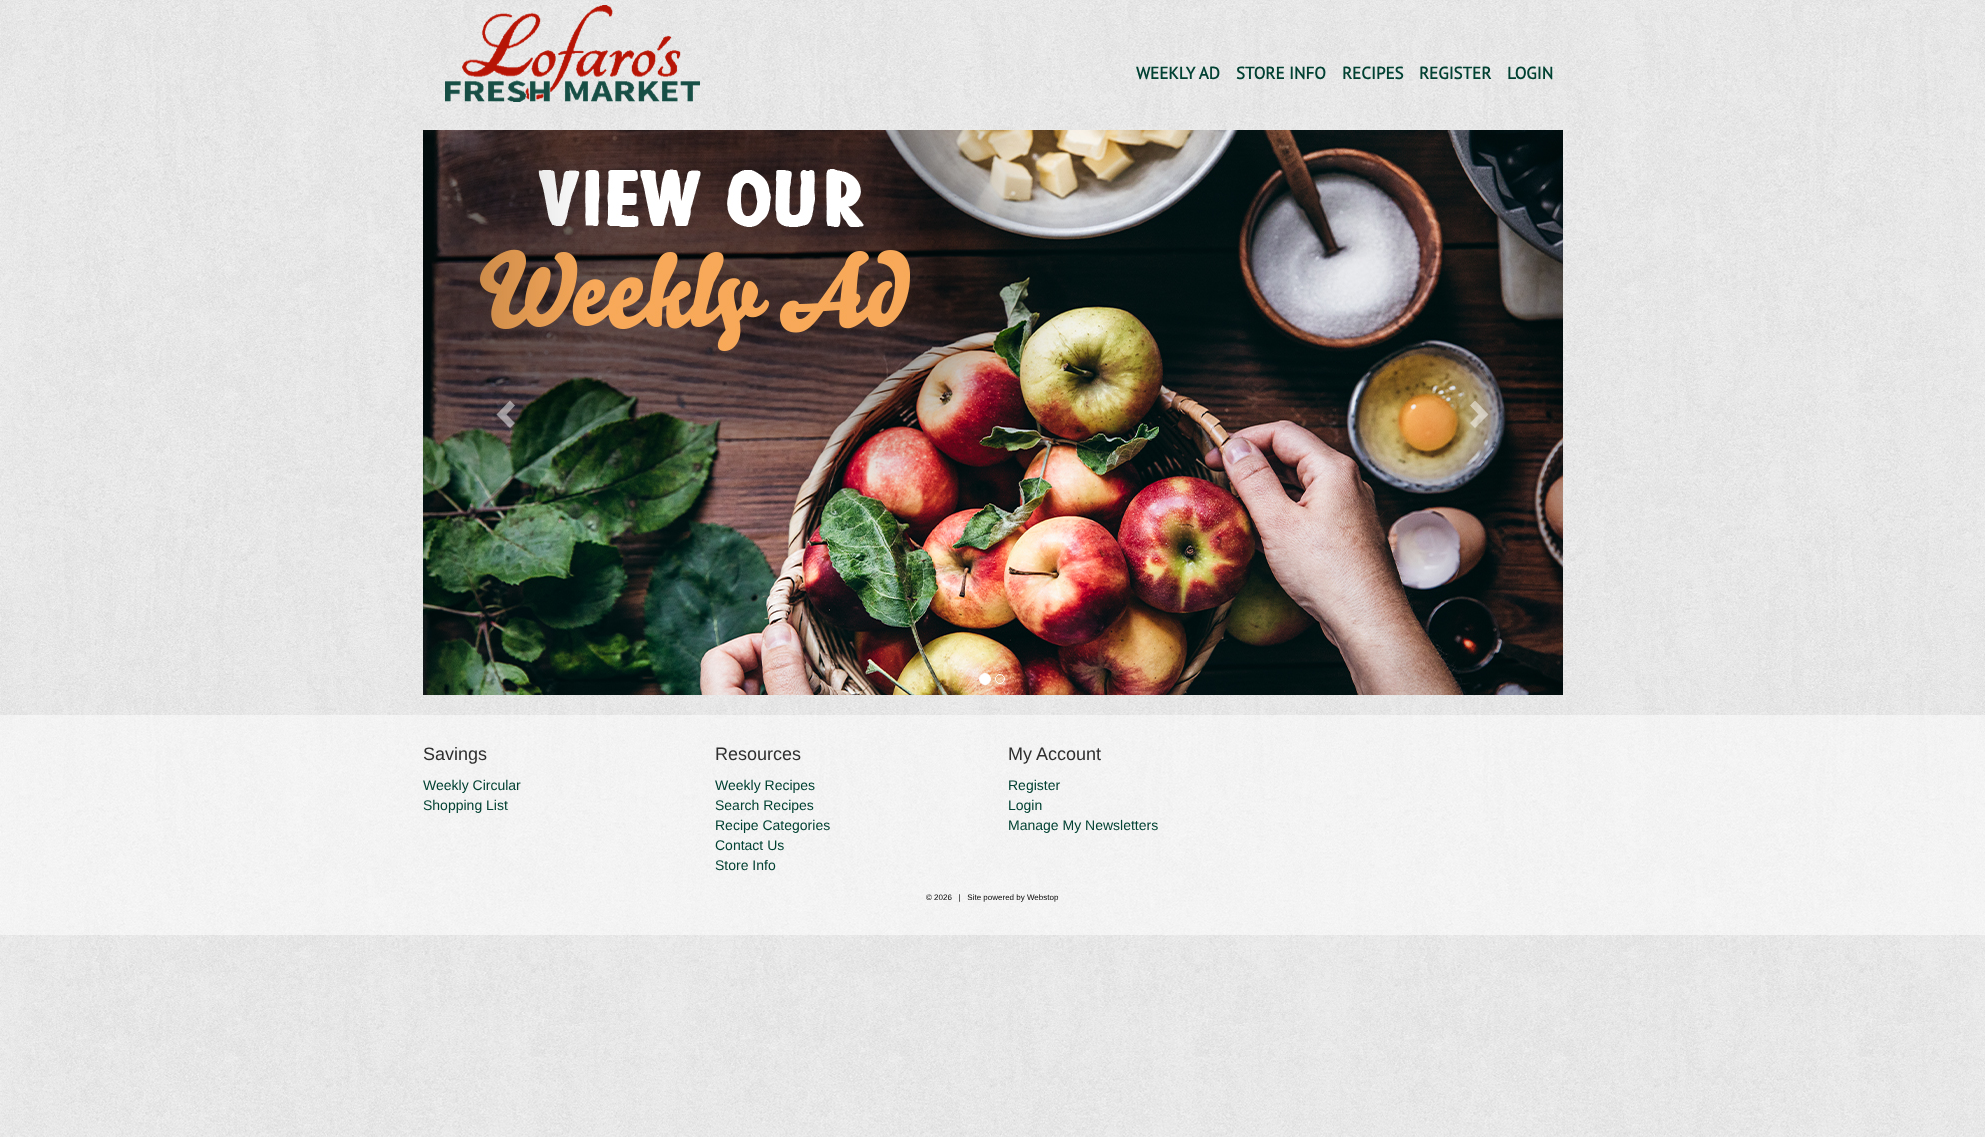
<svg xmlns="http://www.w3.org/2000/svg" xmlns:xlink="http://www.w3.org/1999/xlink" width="1985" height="1137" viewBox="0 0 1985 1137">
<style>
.cls-1{font:bold 17px PT Sans;fill:#004132}
.cls-2{font:18px Liberation Sans;fill:#2f2f2f}
.cls-3{font:14px Liberation Sans;fill:#004132}
.cls-4{font:8px Liberation Sans;fill:#000000}
</style>
<rect width="100%" height="100%" fill="#ffffff"/>
<image xlink:href="image0.png" x="0" y="0" width="1985" height="1137"/>
<image xlink:href="image1.png" x="445" y="5" width="255" height="97"/>
<image xlink:href="image2.png" x="423" y="130" width="1140" height="565"/>
<path fill="#ffffff" fill-opacity="0.5" d="M515 405.5L506.5 414.5L515 423L510 428L496.5 414.5L510 400.5Z"/>
<path fill="#ffffff" fill-opacity="0.5" d="M1488.5 414.5L1475 428L1470 423L1478.5 414.5L1470 405.5L1475 400.5Z"/>
<circle fill="#ffffff" stroke="#ffffff" cx="985" cy="679" r="5.5"/>
<circle fill="none" stroke="#ffffff" cx="1000" cy="679" r="4.5"/>
<rect fill="#ffffff" fill-opacity="0.5" x="0" y="715" width="1985" height="220"/>
<text class="cls-1" x="1136" y="79">WEEKLY AD</text>
<text class="cls-1" x="1236" y="79">STORE INFO</text>
<text class="cls-1" x="1342" y="79">RECIPES</text>
<text class="cls-1" x="1419" y="79">REGISTER</text>
<text class="cls-1" x="1507" y="79">LOGIN</text>
<text class="cls-2" x="423" y="760">Savings</text>
<text class="cls-3"><tspan x="423" y="790">Weekly Circular</tspan><tspan x="423" y="810">Shopping List</tspan></text>
<text class="cls-2" x="715" y="760">Resources</text>
<text class="cls-3"><tspan x="715" y="790">Weekly Recipes</tspan><tspan x="715" y="810">Search Recipes</tspan><tspan x="715" y="830">Recipe Categories</tspan><tspan x="715" y="850">Contact Us</tspan><tspan x="715" y="870">Store Info</tspan></text>
<text class="cls-2" x="1008" y="760">My Account</text>
<text class="cls-3"><tspan x="1008" y="790">Register</tspan><tspan x="1008" y="810">Login</tspan><tspan x="1008" y="830">Manage My Newsletters</tspan></text>
<text class="cls-4" xml:space="preserve" x="926" y="900">© 2026   |   Site powered by Webstop</text>
</svg>
